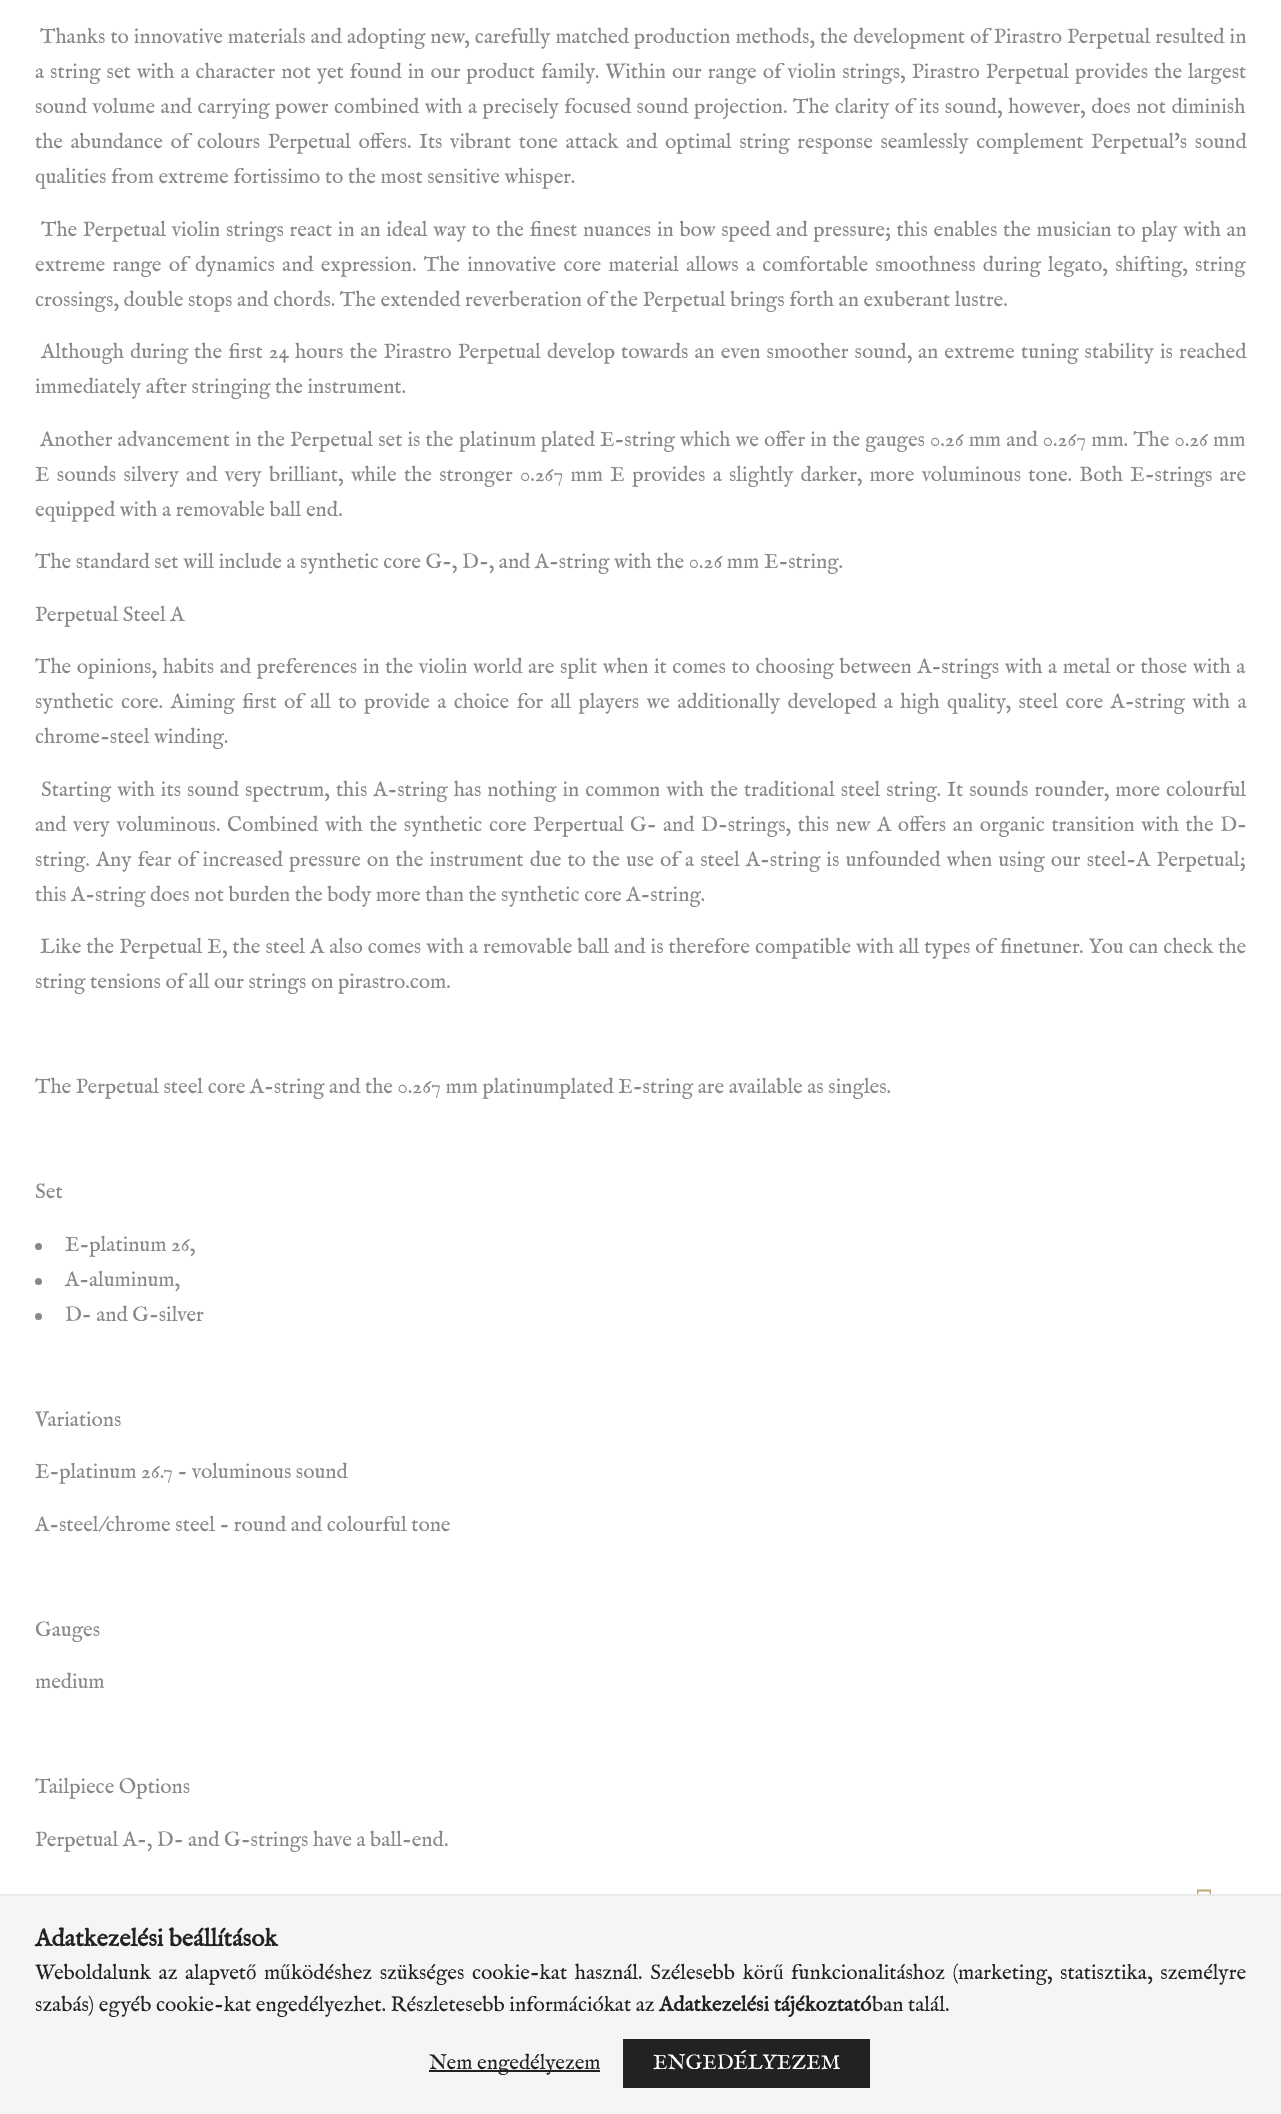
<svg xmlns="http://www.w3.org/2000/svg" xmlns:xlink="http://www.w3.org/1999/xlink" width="1281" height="2114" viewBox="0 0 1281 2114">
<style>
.cls-1{font:21px IM FELL English;fill:#888888}
.cls-2{font:bold 24.5px IM FELL English;fill:#222222}
.cls-3{font:21px IM FELL English;fill:#222222}
.cls-4{font:21px Liberation Serif;fill:#222222}
.cls-5{font:bold 21px IM FELL English;fill:#222222}
.cls-6{font:21px IM FELL English;fill:#ffffff}
</style>
<defs>
<linearGradient id="g1" gradientUnits="userSpaceOnUse" x1="130" y1="2063" x2="870" y2="2063"><stop offset="0" stop-color="#c0a673"/><stop offset="0.33" stop-color="#80674d"/><stop offset="0.67" stop-color="#222222"/><stop offset="1" stop-color="#222222"/></linearGradient>
</defs>
<rect width="100%" height="100%" fill="#ffffff"/>
<circle fill="#888888" cx="38.5" cy="1246.5" r="3.5"/>
<circle fill="#888888" cx="38.5" cy="1281.5" r="3.5"/>
<circle fill="#888888" cx="38.5" cy="1316.5" r="3.5"/>
<path fill="#c0a673" d="M1197 1914.5V1889.5H1211V1914.5ZM1198.5 1912.5H1209.5V1891.5H1198.5Z"/>
<rect fill="#f5f5f5" x="0" y="1896" width="1281" height="218"/>
<rect fill="#eaeaea" x="0" y="1894" width="1281" height="2"/>
<rect fill="#222222" x="429" y="2070" width="171" height="2"/>
<rect fill="url(#g1)" x="623" y="2039" width="247" height="49"/>
<text class="cls-1" x="40" y="43" word-spacing="0.4">Thanks to innovative materials and adopting new, carefully matched production methods, the development of Pirastro Perpetual resulted in</text>
<text class="cls-1"><tspan x="35" y="78" word-spacing="1.4">a string set with a character not yet found in our product family. Within our range of violin strings, Pirastro Perpetual provides the largest</tspan><tspan x="35" y="113" word-spacing="0.9">sound volume and carrying power combined with a precisely focused sound projection. The clarity of its sound, however, does not diminish</tspan><tspan x="35" y="148" word-spacing="3">the abundance of colours Perpetual offers. Its vibrant tone attack and optimal string response seamlessly complement Perpetual's sound</tspan><tspan x="35" y="183">qualities from extreme fortissimo to the most sensitive whisper.</tspan></text>
<text class="cls-1" x="41" y="236" word-spacing="1.1">The Perpetual violin strings react in an ideal way to the finest nuances in bow speed and pressure; this enables the musician to play with an</text>
<text class="cls-1"><tspan x="35" y="271" word-spacing="2.7">extreme range of dynamics and expression. The innovative core material allows a comfortable smoothness during legato, shifting, string</tspan><tspan x="35" y="306">crossings, double stops and chords. The extended reverberation of the Perpetual brings forth an exuberant lustre.</tspan></text>
<text class="cls-1" x="41" y="358" word-spacing="1.5">Although during the first 24 hours the Pirastro Perpetual</text>
<text class="cls-1" x="547" y="358">develop</text>
<text class="cls-1" x="621" y="358" word-spacing="1.5">towards an even smoother sound,</text>
<text class="cls-1" x="918" y="358" word-spacing="1.5">an extreme</text>
<text class="cls-1" x="1021" y="358" word-spacing="1.5">tuning stability is reached</text>
<text class="cls-1" x="35" y="393">immediately after stringing the instrument.</text>
<text class="cls-1" x="40" y="446" word-spacing="0.5">Another advancement in the Perpetual set is the</text>
<text class="cls-1" x="459" y="446">platinum plated</text>
<text class="cls-1" x="600" y="446" word-spacing="0.5">E-string which we offer in the gauges 0.26 mm and 0.267 mm. The 0.26 mm</text>
<text class="cls-1"><tspan x="35" y="481" word-spacing="2.7">E sounds silvery and very brilliant, while the stronger 0.267 mm E provides a slightly darker, more voluminous tone. Both E-strings are</tspan><tspan x="35" y="516">equipped with a removable ball end.</tspan></text>
<text class="cls-1" x="35" y="568">The standard set will include a synthetic core G-, D-, and A-string with the 0.26 mm E-string.</text>
<text class="cls-1" x="35" y="621">Perpetual Steel A</text>
<text class="cls-1"><tspan x="35" y="673" word-spacing="1">The opinions, habits and preferences in the violin world are split when it comes to choosing between A-strings with a metal or those with a</tspan><tspan x="35" y="708" word-spacing="2.8">synthetic core. Aiming first of all to provide a choice for all players we additionally developed a high quality, steel core A-string with a</tspan><tspan x="35" y="743">chrome-steel winding.</tspan></text>
<text class="cls-1" x="41" y="796" word-spacing="1.4">Starting with its sound spectrum, this A-string has nothing in common with the traditional steel string. It sounds rounder, more colourful</text>
<text class="cls-1" x="35" y="831" word-spacing="2">and very voluminous. Combined with the synthetic core</text>
<text class="cls-1" x="533" y="831">Perpertual</text>
<text class="cls-1" x="630" y="831" word-spacing="2">G- and D-strings, this new A offers an organic transition with the D-</text>
<text class="cls-1"><tspan x="35" y="866" word-spacing="1.5">string. Any fear of increased pressure on the instrument due to the use of a steel A-string is unfounded when using our steel-A Perpetual;</tspan><tspan x="35" y="901">this A-string does not burden the body more than the synthetic core A-string.</tspan></text>
<text class="cls-1" x="40" y="953" word-spacing="0.4">Like the Perpetual E, the steel A also comes with a removable ball and is therefore compatible with all types of</text>
<text class="cls-1" x="1000" y="953">finetuner</text>
<text class="cls-1" x="1079" y="953" word-spacing="0.5">. You can check the</text>
<text class="cls-1" x="35" y="988">string tensions of all our strings on pirastro.com.</text>
<text class="cls-1" x="35" y="1093">The Perpetual steel core A-string and the 0.267 mm platinumplated E-string are available as singles.</text>
<text class="cls-1" x="35" y="1198">Set</text>
<text class="cls-1"><tspan x="65" y="1251">E-platinum 26,</tspan><tspan x="65" y="1286">A-aluminum,</tspan><tspan x="65" y="1321">D- and G-silver</tspan></text>
<text class="cls-1" x="35" y="1426">Variations</text>
<text class="cls-1" x="35" y="1478">E-platinum 26.7 - voluminous sound</text>
<text class="cls-1" x="35" y="1531">A-steel/chrome steel - round and colourful tone</text>
<text class="cls-1" x="35" y="1636">Gauges</text>
<text class="cls-1" x="35" y="1688">medium</text>
<text class="cls-1" x="35" y="1793">Tailpiece Options</text>
<text class="cls-1" x="35" y="1846">Perpetual A-, D- and G-strings have a ball-end.</text>
<text class="cls-2" x="35" y="1946">Adatkezelési beállítások</text>
<text class="cls-3" x="35" y="1979" word-spacing="3">Weboldalunk az alapvet</text>
<text class="cls-4" x="246" y="1979">ő</text>
<text class="cls-3" x="264" y="1979">m</text>
<text class="cls-4" x="280" y="1979">ű</text>
<text class="cls-3" x="291" y="1979" word-spacing="3">ködéshez szükséges cookie-kat használ. Szélesebb kör</text>
<text class="cls-4" x="773" y="1979">ű</text>
<text class="cls-3" x="791" y="1979" word-spacing="3">funkcionalitáshoz (marketing, statisztika, személyre</text>
<text class="cls-3" x="35" y="2011">szabás) egyéb cookie-kat engedélyezhet. Részletesebb információkat az</text>
<text class="cls-5" x="659" y="2011">Adatkezelési tájékoztató</text>
<text class="cls-3" x="872" y="2011">ban talál.</text>
<text class="cls-3" x="429" y="2069">Nem engedélyezem</text>
<text class="cls-6" x="653" y="2069">ENGEDÉLYEZEM</text>
</svg>
